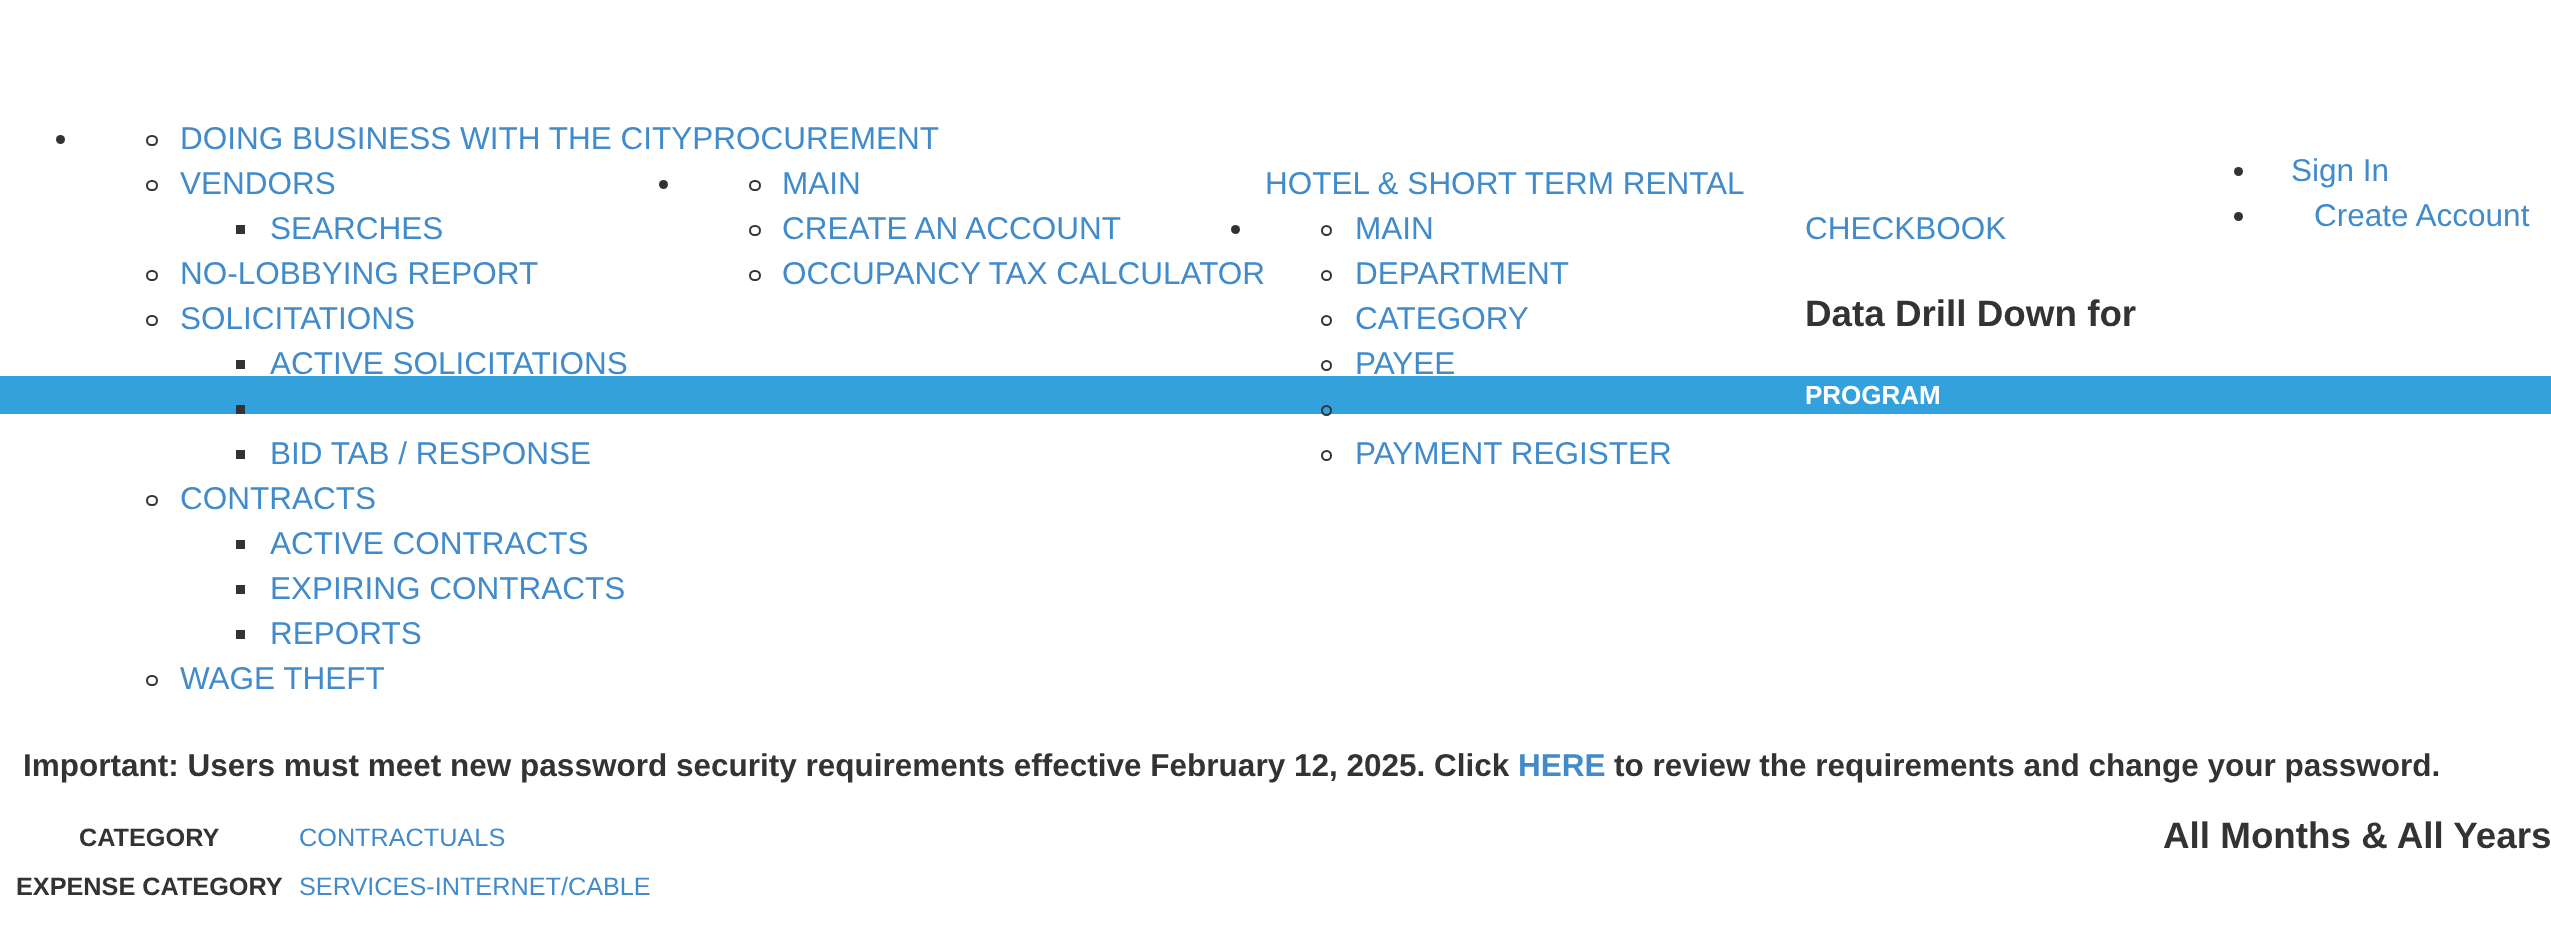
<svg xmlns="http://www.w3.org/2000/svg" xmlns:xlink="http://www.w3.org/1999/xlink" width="2551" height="928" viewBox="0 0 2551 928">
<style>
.cls-1{font:31.5px Liberation Sans;fill:#428bca}
.cls-2{font:bold 36.8px Liberation Sans;fill:#333333}
.cls-3{font:bold 26px Liberation Sans;fill:#ffffff}
.cls-4{font:bold 25.25px Liberation Sans;fill:#333333}
.cls-5{font:25.25px Liberation Sans;fill:#428bca}
.cls-6{font:bold 31.5px Liberation Sans;fill:#333333}
.cls-7{font:bold 31.5px Liberation Sans;fill:#428bca}
</style>
<rect width="100%" height="100%" fill="#ffffff"/>
<circle fill="#333333" cx="60.5" cy="139.5" r="4.5"/>
<rect fill="none" stroke="#333333" stroke-width="2" x="147" y="136" width="10" height="9" rx="4.5"/>
<rect fill="none" stroke="#333333" stroke-width="2" x="147" y="181" width="10" height="9" rx="4.5"/>
<rect fill="#333333" x="236" y="225" width="9" height="9"/>
<rect fill="none" stroke="#333333" stroke-width="2" x="147" y="271" width="10" height="9" rx="4.5"/>
<rect fill="none" stroke="#333333" stroke-width="2" x="147" y="316" width="10" height="9" rx="4.5"/>
<rect fill="#333333" x="236" y="360" width="9" height="9"/>
<rect fill="#33a2dc" x="0" y="376" width="2551" height="38"/>
<rect fill="#333333" x="236" y="405" width="9" height="9"/>
<rect fill="#333333" x="236" y="450" width="9" height="9"/>
<rect fill="none" stroke="#333333" stroke-width="2" x="147" y="496" width="10" height="9" rx="4.5"/>
<rect fill="#333333" x="236" y="540" width="9" height="9"/>
<rect fill="#333333" x="236" y="585" width="9" height="9"/>
<rect fill="#333333" x="236" y="630" width="9" height="9"/>
<rect fill="none" stroke="#333333" stroke-width="2" x="147" y="676" width="10" height="9" rx="4.5"/>
<circle fill="#333333" cx="663.5" cy="184.5" r="4.5"/>
<rect fill="none" stroke="#333333" stroke-width="2" x="750" y="181" width="10" height="9" rx="4.5"/>
<rect fill="none" stroke="#333333" stroke-width="2" x="750" y="226" width="10" height="9" rx="4.5"/>
<rect fill="none" stroke="#333333" stroke-width="2" x="750" y="271" width="10" height="9" rx="4.5"/>
<circle fill="#333333" cx="1235.5" cy="229.5" r="4.5"/>
<circle fill="none" stroke="#333333" stroke-width="2" cx="1326.5" cy="230.5" r="4.5"/>
<circle fill="none" stroke="#333333" stroke-width="2" cx="1326.5" cy="275.5" r="4.5"/>
<circle fill="none" stroke="#333333" stroke-width="2" cx="1326.5" cy="320.5" r="4.5"/>
<circle fill="none" stroke="#333333" stroke-width="2" cx="1326.5" cy="365.5" r="4.5"/>
<circle fill="none" stroke="#333333" stroke-width="2" cx="1326.5" cy="410.5" r="4.5"/>
<circle fill="none" stroke="#333333" stroke-width="2" cx="1326.5" cy="455.5" r="4.5"/>
<circle fill="#333333" cx="2238.5" cy="171.5" r="4.5"/>
<circle fill="#333333" cx="2238.5" cy="216.5" r="4.5"/>
<text class="cls-1"><tspan x="180" y="149">DOING BUSINESS WITH THE CITYPROCUREMENT</tspan><tspan x="180" y="194">VENDORS</tspan></text>
<text class="cls-1" x="270" y="239">SEARCHES</text>
<text class="cls-1"><tspan x="180" y="284">NO-LOBBYING REPORT</tspan><tspan x="180" y="329">SOLICITATIONS</tspan></text>
<text class="cls-1" x="270" y="374">ACTIVE SOLICITATIONS</text>
<text class="cls-1" x="270" y="464">BID TAB / RESPONSE</text>
<text class="cls-1" x="180" y="509">CONTRACTS</text>
<text class="cls-1"><tspan x="270" y="554">ACTIVE CONTRACTS</tspan><tspan x="270" y="599">EXPIRING CONTRACTS</tspan><tspan x="270" y="644">REPORTS</tspan></text>
<text class="cls-1" x="180" y="689">WAGE THEFT</text>
<text class="cls-1"><tspan x="782" y="194">MAIN</tspan><tspan x="782" y="239">CREATE AN ACCOUNT</tspan><tspan x="782" y="284">OCCUPANCY TAX CALCULATOR</tspan></text>
<text class="cls-1" x="1265" y="194">HOTEL &amp; SHORT TERM RENTAL</text>
<text class="cls-1"><tspan x="1355" y="239">MAIN</tspan><tspan x="1355" y="284">DEPARTMENT</tspan><tspan x="1355" y="329">CATEGORY</tspan><tspan x="1355" y="374">PAYEE</tspan></text>
<text class="cls-1" x="1355" y="464">PAYMENT REGISTER</text>
<text class="cls-1" x="1805" y="239">CHECKBOOK</text>
<text class="cls-1" x="2291" y="181">Sign In</text>
<text class="cls-1" x="2314" y="226">Create Account</text>
<text class="cls-2" x="1805" y="326">Data Drill Down for</text>
<text class="cls-2" x="2163" y="848">All Months &amp; All Years</text>
<text class="cls-3" x="1805" y="404">PROGRAM</text>
<text class="cls-4" x="79" y="846">CATEGORY</text>
<text class="cls-5" x="299" y="846">CONTRACTUALS</text>
<text class="cls-4" x="16" y="895">EXPENSE CATEGORY</text>
<text class="cls-5" x="299" y="895">SERVICES-INTERNET/CABLE</text>
<text class="cls-6" x="23" y="776">Important: Users must meet new password security requirements effective February 12, 2025. Click</text>
<text class="cls-7" x="1518" y="776">HERE</text>
<text class="cls-6" x="1614" y="776">to review the requirements and change your password.</text>
</svg>
